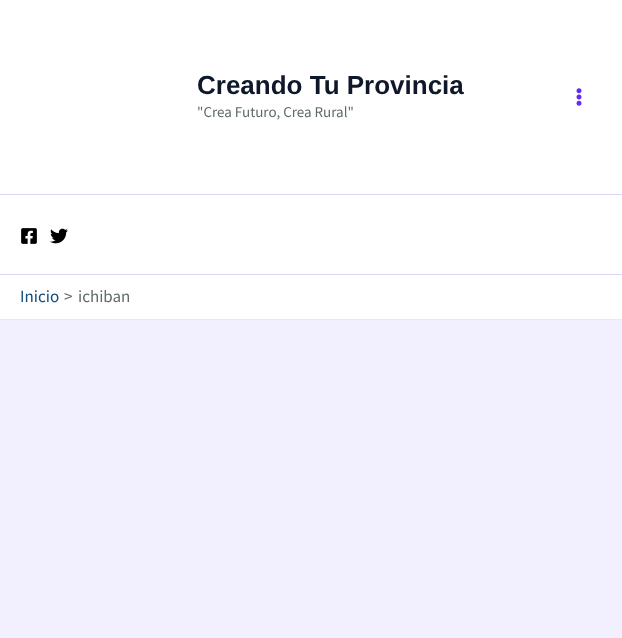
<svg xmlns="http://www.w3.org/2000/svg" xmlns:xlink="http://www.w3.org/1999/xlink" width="622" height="638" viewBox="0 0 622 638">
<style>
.cls-1{font:bold 26px Liberation Sans;fill:#0f172a}
.cls-2{font:15px Source Sans Pro;fill:#5f6b6a}
.cls-3{font:17px Source Sans Pro;fill:#0e4c7a}
.cls-4{font:17px Source Sans Pro;fill:#5f6b6a}
</style>
<rect width="100%" height="100%" fill="#f2f0fe"/>
<rect fill="#ffffff" x="0" y="0" width="622" height="194"/>
<rect fill="#d8d8f5" x="0" y="194" width="622" height="1"/>
<image xlink:href="image0.png" x="576" y="88" width="6" height="18"/>
<rect fill="#ffffff" x="0" y="195" width="622" height="79"/>
<rect fill="#d8d8f5" x="0" y="274" width="622" height="1"/>
<image xlink:href="image1.png" x="21" y="228" width="16" height="16"/>
<image xlink:href="image2.png" x="50" y="228" width="18" height="16"/>
<rect fill="#ffffff" x="0" y="275" width="622" height="44"/>
<rect fill="#eaeaea" x="0" y="319" width="622" height="1"/>
<text class="cls-1" x="197" y="94">Creando Tu Provincia</text>
<text class="cls-2" x="197" y="117">"Crea Futuro, Crea Rural"</text>
<text class="cls-3" x="20" y="302">Inicio</text>
<text class="cls-4" x="64" y="302">&gt;</text>
<text class="cls-4" x="78" y="302">ichiban</text>
</svg>
